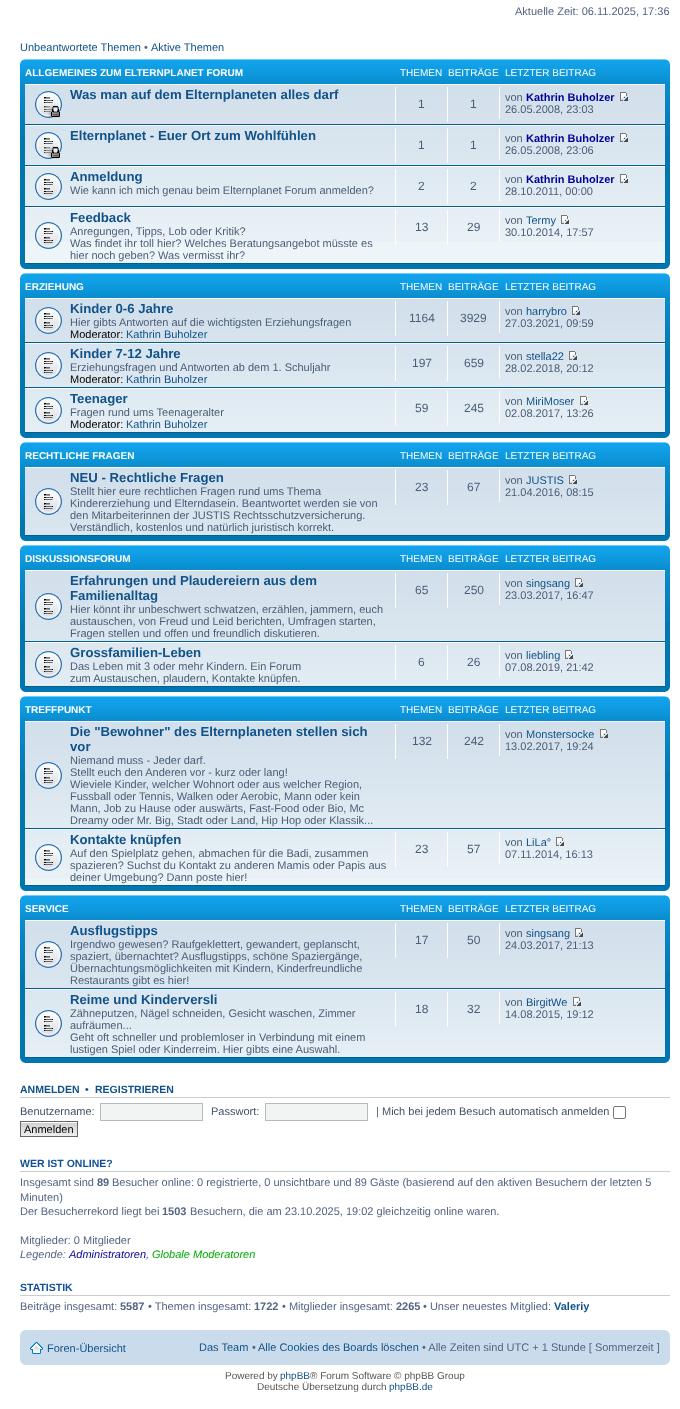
<svg xmlns="http://www.w3.org/2000/svg" xmlns:xlink="http://www.w3.org/1999/xlink" width="680" height="1409" viewBox="0 0 680 1409">
<style>
.cls-1{font:11px Liberation Sans;fill:#536482}
.cls-2{font:11px Liberation Sans;fill:#105289}
.cls-3{font:bold 10px Liberation Sans;fill:#ffffff}
.cls-4{font:10px Liberation Sans;fill:#ffffff}
.cls-5{font:bold 13.2px Liberation Sans;fill:#105289}
.cls-6{font:12px Liberation Sans;fill:#4c5d77}
.cls-7{font:11px Liberation Sans;fill:#4c5d77}
.cls-8{font:bold 11px Liberation Sans;fill:#000099}
.cls-9{font:11px Liberation Sans;fill:#000000}
.cls-10{font:bold 10.5px Liberation Sans;fill:#105289}
.cls-11{font:bold 10.5px Liberation Sans;fill:#115098}
.cls-12{font:11px Liberation Sans;fill:#425067}
.cls-13{font:bold 11px Liberation Sans;fill:#536482}
.cls-14{font:italic 11px Liberation Sans;fill:#536482}
.cls-15{font:italic 11px Liberation Sans;fill:#000099}
.cls-16{font:italic 11px Liberation Sans;fill:#00aa00}
.cls-17{font:bold 11px Liberation Sans;fill:#105289}
.cls-18{font:10px Liberation Sans;fill:#555555}
.cls-19{font:10px Liberation Sans;fill:#105289}
</style>
<rect width="100%" height="100%" fill="#ffffff"/>
<rect fill="#0076b1" x="20" y="136" width="650" height="133"/>
<image xlink:href="image0.png" x="20" y="59" width="650" height="77"/>
<image xlink:href="image1.png" x="20" y="59" width="5" height="5"/>
<image xlink:href="image2.png" x="665" y="59" width="5" height="5"/>
<rect fill="#eef5f9" x="25" y="242" width="640" height="21"/>
<image xlink:href="image3.png" x="25" y="85" width="640" height="157"/>
<rect fill="#ffffff" x="25" y="84" width="640" height="1"/>
<rect fill="#00608f" x="25" y="124" width="640" height="1"/>
<image xlink:href="image4.png" x="35" y="91" width="27" height="27"/>
<rect fill="#ffffff" x="395" y="87" width="1" height="35"/>
<rect fill="#ffffff" x="447" y="87" width="1" height="35"/>
<rect fill="#ffffff" x="499" y="87" width="1" height="32"/>
<image xlink:href="image5.png" x="620" y="92" width="8" height="9"/>
<rect fill="#ffffff" x="25" y="125" width="640" height="1"/>
<rect fill="#00608f" x="25" y="165" width="640" height="1"/>
<image xlink:href="image6.png" x="35" y="132" width="27" height="27"/>
<rect fill="#ffffff" x="395" y="128" width="1" height="35"/>
<rect fill="#ffffff" x="447" y="128" width="1" height="35"/>
<rect fill="#ffffff" x="499" y="128" width="1" height="32"/>
<image xlink:href="image7.png" x="620" y="133" width="8" height="9"/>
<rect fill="#ffffff" x="25" y="166" width="640" height="1"/>
<rect fill="#00608f" x="25" y="206" width="640" height="1"/>
<image xlink:href="image8.png" x="35" y="173" width="27" height="27"/>
<rect fill="#ffffff" x="395" y="169" width="1" height="35"/>
<rect fill="#ffffff" x="447" y="169" width="1" height="35"/>
<rect fill="#ffffff" x="499" y="169" width="1" height="32"/>
<image xlink:href="image9.png" x="620" y="174" width="8" height="9"/>
<rect fill="#ffffff" x="25" y="207" width="640" height="1"/>
<rect fill="#00608f" x="25" y="263" width="640" height="1"/>
<image xlink:href="image10.png" x="35" y="222" width="27" height="27"/>
<rect fill="#ffffff" x="395" y="210" width="1" height="35"/>
<rect fill="#ffffff" x="447" y="210" width="1" height="35"/>
<rect fill="#ffffff" x="499" y="210" width="1" height="32"/>
<image xlink:href="image11.png" x="561" y="215" width="8" height="9"/>
<image xlink:href="image12.png" x="20" y="264" width="5" height="5"/>
<image xlink:href="image13.png" x="665" y="264" width="5" height="5"/>
<rect fill="#0076b1" x="20" y="350" width="650" height="88"/>
<image xlink:href="image0.png" x="20" y="273" width="650" height="77"/>
<image xlink:href="image1.png" x="20" y="273" width="5" height="5"/>
<image xlink:href="image2.png" x="665" y="273" width="5" height="5"/>
<image xlink:href="image14.png" x="25" y="299" width="640" height="133"/>
<rect fill="#ffffff" x="25" y="298" width="640" height="1"/>
<rect fill="#00608f" x="25" y="342" width="640" height="1"/>
<image xlink:href="image15.png" x="35" y="307" width="27" height="27"/>
<rect fill="#ffffff" x="395" y="301" width="1" height="35"/>
<rect fill="#ffffff" x="447" y="301" width="1" height="35"/>
<rect fill="#ffffff" x="499" y="301" width="1" height="32"/>
<image xlink:href="image5.png" x="572" y="306" width="8" height="9"/>
<rect fill="#ffffff" x="25" y="343" width="640" height="1"/>
<rect fill="#00608f" x="25" y="387" width="640" height="1"/>
<image xlink:href="image16.png" x="35" y="352" width="27" height="27"/>
<rect fill="#ffffff" x="395" y="346" width="1" height="35"/>
<rect fill="#ffffff" x="447" y="346" width="1" height="35"/>
<rect fill="#ffffff" x="499" y="346" width="1" height="32"/>
<image xlink:href="image17.png" x="569" y="351" width="8" height="9"/>
<rect fill="#ffffff" x="25" y="388" width="640" height="1"/>
<rect fill="#00608f" x="25" y="432" width="640" height="1"/>
<image xlink:href="image18.png" x="35" y="397" width="27" height="27"/>
<rect fill="#ffffff" x="395" y="391" width="1" height="35"/>
<rect fill="#ffffff" x="447" y="391" width="1" height="35"/>
<rect fill="#ffffff" x="499" y="391" width="1" height="32"/>
<image xlink:href="image19.png" x="580" y="396" width="8" height="9"/>
<image xlink:href="image12.png" x="20" y="433" width="5" height="5"/>
<image xlink:href="image13.png" x="665" y="433" width="5" height="5"/>
<rect fill="#0076b1" x="20" y="519" width="650" height="22"/>
<image xlink:href="image0.png" x="20" y="442" width="650" height="77"/>
<image xlink:href="image1.png" x="20" y="442" width="5" height="5"/>
<image xlink:href="image2.png" x="665" y="442" width="5" height="5"/>
<image xlink:href="image20.png" x="25" y="468" width="640" height="67"/>
<rect fill="#ffffff" x="25" y="467" width="640" height="1"/>
<rect fill="#00608f" x="25" y="535" width="640" height="1"/>
<image xlink:href="image21.png" x="35" y="488" width="27" height="27"/>
<rect fill="#ffffff" x="395" y="470" width="1" height="35"/>
<rect fill="#ffffff" x="447" y="470" width="1" height="35"/>
<rect fill="#ffffff" x="499" y="470" width="1" height="32"/>
<image xlink:href="image5.png" x="569" y="475" width="8" height="9"/>
<image xlink:href="image12.png" x="20" y="536" width="5" height="5"/>
<image xlink:href="image13.png" x="665" y="536" width="5" height="5"/>
<rect fill="#0076b1" x="20" y="622" width="650" height="70"/>
<image xlink:href="image0.png" x="20" y="545" width="650" height="77"/>
<image xlink:href="image1.png" x="20" y="545" width="5" height="5"/>
<image xlink:href="image2.png" x="665" y="545" width="5" height="5"/>
<image xlink:href="image22.png" x="25" y="571" width="640" height="115"/>
<rect fill="#ffffff" x="25" y="570" width="640" height="1"/>
<rect fill="#00608f" x="25" y="641" width="640" height="1"/>
<image xlink:href="image23.png" x="35" y="593" width="27" height="27"/>
<rect fill="#ffffff" x="395" y="573" width="1" height="35"/>
<rect fill="#ffffff" x="447" y="573" width="1" height="35"/>
<rect fill="#ffffff" x="499" y="573" width="1" height="32"/>
<image xlink:href="image5.png" x="575" y="578" width="8" height="9"/>
<rect fill="#ffffff" x="25" y="642" width="640" height="1"/>
<rect fill="#00608f" x="25" y="686" width="640" height="1"/>
<image xlink:href="image24.png" x="35" y="651" width="27" height="27"/>
<rect fill="#ffffff" x="395" y="645" width="1" height="35"/>
<rect fill="#ffffff" x="447" y="645" width="1" height="35"/>
<rect fill="#ffffff" x="499" y="645" width="1" height="32"/>
<image xlink:href="image25.png" x="565" y="650" width="8" height="9"/>
<image xlink:href="image12.png" x="20" y="687" width="5" height="5"/>
<image xlink:href="image13.png" x="665" y="687" width="5" height="5"/>
<rect fill="#0076b1" x="20" y="773" width="650" height="118"/>
<image xlink:href="image0.png" x="20" y="696" width="650" height="77"/>
<image xlink:href="image1.png" x="20" y="696" width="5" height="5"/>
<image xlink:href="image2.png" x="665" y="696" width="5" height="5"/>
<rect fill="#eef5f9" x="25" y="879" width="640" height="6"/>
<image xlink:href="image3.png" x="25" y="722" width="640" height="157"/>
<rect fill="#ffffff" x="25" y="721" width="640" height="1"/>
<rect fill="#00608f" x="25" y="828" width="640" height="1"/>
<image xlink:href="image26.png" x="35" y="762" width="27" height="27"/>
<rect fill="#ffffff" x="395" y="724" width="1" height="35"/>
<rect fill="#ffffff" x="447" y="724" width="1" height="35"/>
<rect fill="#ffffff" x="499" y="724" width="1" height="32"/>
<image xlink:href="image5.png" x="600" y="729" width="8" height="9"/>
<rect fill="#ffffff" x="25" y="829" width="640" height="1"/>
<rect fill="#00608f" x="25" y="885" width="640" height="1"/>
<image xlink:href="image27.png" x="35" y="844" width="27" height="27"/>
<rect fill="#ffffff" x="395" y="832" width="1" height="35"/>
<rect fill="#ffffff" x="447" y="832" width="1" height="35"/>
<rect fill="#ffffff" x="499" y="832" width="1" height="32"/>
<image xlink:href="image28.png" x="556" y="837" width="8" height="9"/>
<image xlink:href="image12.png" x="20" y="886" width="5" height="5"/>
<image xlink:href="image13.png" x="665" y="886" width="5" height="5"/>
<rect fill="#0076b1" x="20" y="972" width="650" height="91"/>
<image xlink:href="image0.png" x="20" y="895" width="650" height="77"/>
<image xlink:href="image1.png" x="20" y="895" width="5" height="5"/>
<image xlink:href="image2.png" x="665" y="895" width="5" height="5"/>
<image xlink:href="image29.png" x="25" y="921" width="640" height="136"/>
<rect fill="#ffffff" x="25" y="920" width="640" height="1"/>
<rect fill="#00608f" x="25" y="988" width="640" height="1"/>
<image xlink:href="image21.png" x="35" y="941" width="27" height="27"/>
<rect fill="#ffffff" x="395" y="923" width="1" height="35"/>
<rect fill="#ffffff" x="447" y="923" width="1" height="35"/>
<rect fill="#ffffff" x="499" y="923" width="1" height="32"/>
<image xlink:href="image5.png" x="575" y="928" width="8" height="9"/>
<rect fill="#ffffff" x="25" y="989" width="640" height="1"/>
<rect fill="#00608f" x="25" y="1057" width="640" height="1"/>
<image xlink:href="image30.png" x="35" y="1010" width="27" height="27"/>
<rect fill="#ffffff" x="395" y="992" width="1" height="35"/>
<rect fill="#ffffff" x="447" y="992" width="1" height="35"/>
<rect fill="#ffffff" x="499" y="992" width="1" height="32"/>
<image xlink:href="image31.png" x="573" y="997" width="8" height="9"/>
<image xlink:href="image12.png" x="20" y="1058" width="5" height="5"/>
<image xlink:href="image13.png" x="665" y="1058" width="5" height="5"/>
<rect fill="#cccccc" x="20" y="1097" width="650" height="1"/>
<rect fill="#f2f3f3" stroke="#b4bac0" x="100.5" y="1103.5" width="102" height="17"/>
<rect fill="#f2f3f3" stroke="#b4bac0" x="265.5" y="1103.5" width="102" height="17"/>
<rect fill="none" stroke="#767676" x="613.5" y="1106.5" width="12" height="12" rx="1.5"/>
<image xlink:href="image32.png" x="21" y="1122" width="56" height="14"/>
<rect fill="none" stroke="#666666" x="20.5" y="1121.5" width="57" height="15"/>
<rect fill="#cccccc" x="20" y="1171" width="650" height="1"/>
<rect fill="#cccccc" x="20" y="1295" width="650" height="1"/>
<rect fill="#cadceb" x="20" y="1330" width="650" height="35"/>
<image xlink:href="image33.png" x="20" y="1330" width="5" height="5"/>
<image xlink:href="image34.png" x="665" y="1330" width="5" height="5"/>
<image xlink:href="image35.png" x="30" y="1342" width="13" height="12"/>
<image xlink:href="image36.png" x="20" y="1360" width="5" height="5"/>
<image xlink:href="image37.png" x="665" y="1360" width="5" height="5"/>
<text class="cls-1" x="515" y="15">Aktuelle Zeit: 06.11.2025, 17:36</text>
<text class="cls-2" x="20" y="51">Unbeantwortete Themen</text>
<text class="cls-1" x="144" y="51">•</text>
<text class="cls-2" x="151" y="51">Aktive Themen</text>
<text class="cls-3" x="25" y="76">ALLGEMEINES ZUM ELTERNPLANET FORUM</text>
<text class="cls-4" x="400" y="76">THEMEN</text>
<text class="cls-4" x="448" y="76">BEITRÄGE</text>
<text class="cls-4" x="505" y="76">LETZTER BEITRAG</text>
<text class="cls-5" x="70" y="99">Was man auf dem Elternplaneten alles darf</text>
<text class="cls-6" x="418" y="108">1</text>
<text class="cls-6" x="470" y="108">1</text>
<text class="cls-7" x="505" y="101">von</text>
<text class="cls-8" x="526" y="101">Kathrin Buholzer</text>
<text class="cls-7" x="505" y="113">26.05.2008, 23:03</text>
<text class="cls-5" x="70" y="140">Elternplanet - Euer Ort zum Wohlfühlen</text>
<text class="cls-6" x="418" y="149">1</text>
<text class="cls-6" x="470" y="149">1</text>
<text class="cls-7" x="505" y="142">von</text>
<text class="cls-8" x="526" y="142">Kathrin Buholzer</text>
<text class="cls-7" x="505" y="154">26.05.2008, 23:06</text>
<text class="cls-5" x="70" y="181">Anmeldung</text>
<text class="cls-7" x="70" y="194">Wie kann ich mich genau beim Elternplanet Forum anmelden?</text>
<text class="cls-6" x="418" y="190">2</text>
<text class="cls-6" x="470" y="190">2</text>
<text class="cls-7" x="505" y="183">von</text>
<text class="cls-8" x="526" y="183">Kathrin Buholzer</text>
<text class="cls-7" x="505" y="195">28.10.2011, 00:00</text>
<text class="cls-5" x="70" y="222">Feedback</text>
<text class="cls-7"><tspan x="70" y="235">Anregungen, Tipps, Lob oder Kritik?</tspan><tspan x="70" y="247">Was findet ihr toll hier? Welches Beratungsangebot müsste es</tspan><tspan x="70" y="259">hier noch geben? Was vermisst ihr?</tspan></text>
<text class="cls-6" x="415" y="231">13</text>
<text class="cls-6" x="467" y="231">29</text>
<text class="cls-7" x="505" y="224">von</text>
<text class="cls-2" x="526" y="224">Termy</text>
<text class="cls-7" x="505" y="236">30.10.2014, 17:57</text>
<text class="cls-3" x="25" y="290">ERZIEHUNG</text>
<text class="cls-4" x="400" y="290">THEMEN</text>
<text class="cls-4" x="448" y="290">BEITRÄGE</text>
<text class="cls-4" x="505" y="290">LETZTER BEITRAG</text>
<text class="cls-5" x="70" y="313">Kinder 0-6 Jahre</text>
<text class="cls-7" x="70" y="326">Hier gibts Antworten auf die wichtigsten Erziehungsfragen</text>
<text class="cls-9" x="70" y="338">Moderator:</text>
<text class="cls-2" x="126" y="338">Kathrin Buholzer</text>
<text class="cls-6" x="409" y="322">1164</text>
<text class="cls-6" x="460" y="322">3929</text>
<text class="cls-7" x="505" y="315">von</text>
<text class="cls-2" x="526" y="315">harrybro</text>
<text class="cls-7" x="505" y="327">27.03.2021, 09:59</text>
<text class="cls-5" x="70" y="358">Kinder 7-12 Jahre</text>
<text class="cls-7" x="70" y="371">Erziehungsfragen und Antworten ab dem 1. Schuljahr</text>
<text class="cls-9" x="70" y="383">Moderator:</text>
<text class="cls-2" x="126" y="383">Kathrin Buholzer</text>
<text class="cls-6" x="412" y="367">197</text>
<text class="cls-6" x="464" y="367">659</text>
<text class="cls-7" x="505" y="360">von</text>
<text class="cls-2" x="526" y="360">stella22</text>
<text class="cls-7" x="505" y="372">28.02.2018, 20:12</text>
<text class="cls-5" x="70" y="403">Teenager</text>
<text class="cls-7" x="70" y="416">Fragen rund ums Teenageralter</text>
<text class="cls-9" x="70" y="428">Moderator:</text>
<text class="cls-2" x="126" y="428">Kathrin Buholzer</text>
<text class="cls-6" x="415" y="412">59</text>
<text class="cls-6" x="464" y="412">245</text>
<text class="cls-7" x="505" y="405">von</text>
<text class="cls-2" x="526" y="405">MiriMoser</text>
<text class="cls-7" x="505" y="417">02.08.2017, 13:26</text>
<text class="cls-3" x="25" y="459">RECHTLICHE FRAGEN</text>
<text class="cls-4" x="400" y="459">THEMEN</text>
<text class="cls-4" x="448" y="459">BEITRÄGE</text>
<text class="cls-4" x="505" y="459">LETZTER BEITRAG</text>
<text class="cls-5" x="70" y="482">NEU - Rechtliche Fragen</text>
<text class="cls-7"><tspan x="70" y="495">Stellt hier eure rechtlichen Fragen rund ums Thema</tspan><tspan x="70" y="507">Kindererziehung und Elterndasein. Beantwortet werden sie von</tspan><tspan x="70" y="519">den Mitarbeiterinnen der JUSTIS Rechtsschutzversicherung.</tspan><tspan x="70" y="531">Verständlich, kostenlos und natürlich juristisch korrekt.</tspan></text>
<text class="cls-6" x="415" y="491">23</text>
<text class="cls-6" x="467" y="491">67</text>
<text class="cls-7" x="505" y="484">von</text>
<text class="cls-2" x="526" y="484">JUSTIS</text>
<text class="cls-7" x="505" y="496">21.04.2016, 08:15</text>
<text class="cls-3" x="25" y="562">DISKUSSIONSFORUM</text>
<text class="cls-4" x="400" y="562">THEMEN</text>
<text class="cls-4" x="448" y="562">BEITRÄGE</text>
<text class="cls-4" x="505" y="562">LETZTER BEITRAG</text>
<text class="cls-5"><tspan x="70" y="585">Erfahrungen und Plaudereiern aus dem</tspan><tspan x="70" y="600">Familienalltag</tspan></text>
<text class="cls-7"><tspan x="70" y="613">Hier könnt ihr unbeschwert schwatzen, erzählen, jammern, euch</tspan><tspan x="70" y="625">austauschen, von Freud und Leid berichten, Umfragen starten,</tspan><tspan x="70" y="637">Fragen stellen und offen und freundlich diskutieren.</tspan></text>
<text class="cls-6" x="415" y="594">65</text>
<text class="cls-6" x="464" y="594">250</text>
<text class="cls-7" x="505" y="587">von</text>
<text class="cls-2" x="526" y="587">singsang</text>
<text class="cls-7" x="505" y="599">23.03.2017, 16:47</text>
<text class="cls-5" x="70" y="657">Grossfamilien-Leben</text>
<text class="cls-7"><tspan x="70" y="670">Das Leben mit 3 oder mehr Kindern. Ein Forum</tspan><tspan x="70" y="682">zum Austauschen, plaudern, Kontakte knüpfen.</tspan></text>
<text class="cls-6" x="418" y="666">6</text>
<text class="cls-6" x="467" y="666">26</text>
<text class="cls-7" x="505" y="659">von</text>
<text class="cls-2" x="526" y="659">liebling</text>
<text class="cls-7" x="505" y="671">07.08.2019, 21:42</text>
<text class="cls-3" x="25" y="713">TREFFPUNKT</text>
<text class="cls-4" x="400" y="713">THEMEN</text>
<text class="cls-4" x="448" y="713">BEITRÄGE</text>
<text class="cls-4" x="505" y="713">LETZTER BEITRAG</text>
<text class="cls-5"><tspan x="70" y="736">Die "Bewohner" des Elternplaneten stellen sich</tspan><tspan x="70" y="751">vor</tspan></text>
<text class="cls-7"><tspan x="70" y="764">Niemand muss - Jeder darf.</tspan><tspan x="70" y="776">Stellt euch den Anderen vor - kurz oder lang!</tspan><tspan x="70" y="788">Wieviele Kinder, welcher Wohnort oder aus welcher Region,</tspan><tspan x="70" y="800">Fussball oder Tennis, Walken oder Aerobic, Mann oder kein</tspan><tspan x="70" y="812">Mann, Job zu Hause oder auswärts, Fast-Food oder Bio, Mc</tspan><tspan x="70" y="824">Dreamy oder Mr. Big, Stadt oder Land, Hip Hop oder Klassik...</tspan></text>
<text class="cls-6" x="412" y="745">132</text>
<text class="cls-6" x="464" y="745">242</text>
<text class="cls-7" x="505" y="738">von</text>
<text class="cls-2" x="526" y="738">Monstersocke</text>
<text class="cls-7" x="505" y="750">13.02.2017, 19:24</text>
<text class="cls-5" x="70" y="844">Kontakte knüpfen</text>
<text class="cls-7"><tspan x="70" y="857">Auf den Spielplatz gehen, abmachen für die Badi, zusammen</tspan><tspan x="70" y="869">spazieren? Suchst du Kontakt zu anderen Mamis oder Papis aus</tspan><tspan x="70" y="881">deiner Umgebung? Dann poste hier!</tspan></text>
<text class="cls-6" x="415" y="853">23</text>
<text class="cls-6" x="467" y="853">57</text>
<text class="cls-7" x="505" y="846">von</text>
<text class="cls-2" x="526" y="846">LiLa°</text>
<text class="cls-7" x="505" y="858">07.11.2014, 16:13</text>
<text class="cls-3" x="25" y="912">SERVICE</text>
<text class="cls-4" x="400" y="912">THEMEN</text>
<text class="cls-4" x="448" y="912">BEITRÄGE</text>
<text class="cls-4" x="505" y="912">LETZTER BEITRAG</text>
<text class="cls-5" x="70" y="935">Ausflugstipps</text>
<text class="cls-7"><tspan x="70" y="948">Irgendwo gewesen? Raufgeklettert, gewandert, geplanscht,</tspan><tspan x="70" y="960">spaziert, übernachtet? Ausflugstipps, schöne Spaziergänge,</tspan><tspan x="70" y="972">Übernachtungsmöglichkeiten mit Kindern, Kinderfreundliche</tspan><tspan x="70" y="984">Restaurants gibt es hier!</tspan></text>
<text class="cls-6" x="415" y="944">17</text>
<text class="cls-6" x="467" y="944">50</text>
<text class="cls-7" x="505" y="937">von</text>
<text class="cls-2" x="526" y="937">singsang</text>
<text class="cls-7" x="505" y="949">24.03.2017, 21:13</text>
<text class="cls-5" x="70" y="1004">Reime und Kinderversli</text>
<text class="cls-7"><tspan x="70" y="1017">Zähneputzen, Nägel schneiden, Gesicht waschen, Zimmer</tspan><tspan x="70" y="1029">aufräumen...</tspan><tspan x="70" y="1041">Geht oft schneller und problemloser in Verbindung mit einem</tspan><tspan x="70" y="1053">lustigen Spiel oder Kinderreim. Hier gibts eine Auswahl.</tspan></text>
<text class="cls-6" x="415" y="1013">18</text>
<text class="cls-6" x="467" y="1013">32</text>
<text class="cls-7" x="505" y="1006">von</text>
<text class="cls-2" x="526" y="1006">BirgitWe</text>
<text class="cls-7" x="505" y="1018">14.08.2015, 19:12</text>
<text class="cls-10" x="20" y="1093">ANMELDEN</text>
<text class="cls-11" x="85" y="1093">•</text>
<text class="cls-10" x="95" y="1093">REGISTRIEREN</text>
<text class="cls-12" x="20" y="1115">Benutzername:</text>
<text class="cls-12" x="211" y="1115">Passwort:</text>
<text class="cls-1" x="376" y="1115">|</text>
<text class="cls-12" x="382" y="1115">Mich bei jedem Besuch automatisch anmelden</text>
<text class="cls-9" x="24" y="1133">Anmelden</text>
<text class="cls-11" x="20" y="1167">WER IST ONLINE?</text>
<text class="cls-1" x="20" y="1186">Insgesamt sind</text>
<text class="cls-13" x="97" y="1186">89</text>
<text class="cls-1" x="112" y="1186">Besucher online: 0 registrierte, 0 unsichtbare und 89 Gäste (basierend auf den aktiven Besuchern der letzten 5</text>
<text class="cls-1"><tspan x="20" y="1201">Minuten)</tspan><tspan x="20" y="1215">Der Besucherrekord liegt bei</tspan></text>
<text class="cls-13" x="162" y="1215">1503</text>
<text class="cls-1" x="190" y="1215">Besuchern, die am 23.10.2025, 19:02 gleichzeitig online waren.</text>
<text class="cls-1" x="20" y="1244">Mitglieder: 0 Mitglieder</text>
<text class="cls-14" x="20" y="1258">Legende:</text>
<text class="cls-15" x="69" y="1258">Administratoren</text>
<text class="cls-14" x="146" y="1258">,</text>
<text class="cls-16" x="152" y="1258">Globale Moderatoren</text>
<text class="cls-11" x="20" y="1291">STATISTIK</text>
<text class="cls-1" x="20" y="1310">Beiträge insgesamt:</text>
<text class="cls-13" x="120" y="1310">5587</text>
<text class="cls-1" x="148" y="1310">• Themen insgesamt:</text>
<text class="cls-13" x="254" y="1310">1722</text>
<text class="cls-1" x="282" y="1310">• Mitglieder insgesamt:</text>
<text class="cls-13" x="396" y="1310">2265</text>
<text class="cls-1" x="423" y="1310">• Unser neuestes Mitglied:</text>
<text class="cls-17" x="554" y="1310">Valeriy</text>
<text class="cls-2" x="47" y="1352">Foren-Übersicht</text>
<text class="cls-2" x="199" y="1351">Das Team</text>
<text class="cls-1" x="252" y="1351">•</text>
<text class="cls-2" x="258" y="1351">Alle Cookies des Boards löschen</text>
<text class="cls-1" x="422" y="1351">• Alle Zeiten sind UTC + 1 Stunde [ Sommerzeit ]</text>
<text class="cls-18" x="225" y="1379">Powered by</text>
<text class="cls-19" x="280" y="1379">phpBB</text>
<text class="cls-18" x="310" y="1379">® Forum Software © phpBB Group</text>
<text class="cls-18" x="257" y="1390">Deutsche Übersetzung durch</text>
<text class="cls-19" x="389" y="1390">phpBB.de</text>
</svg>
